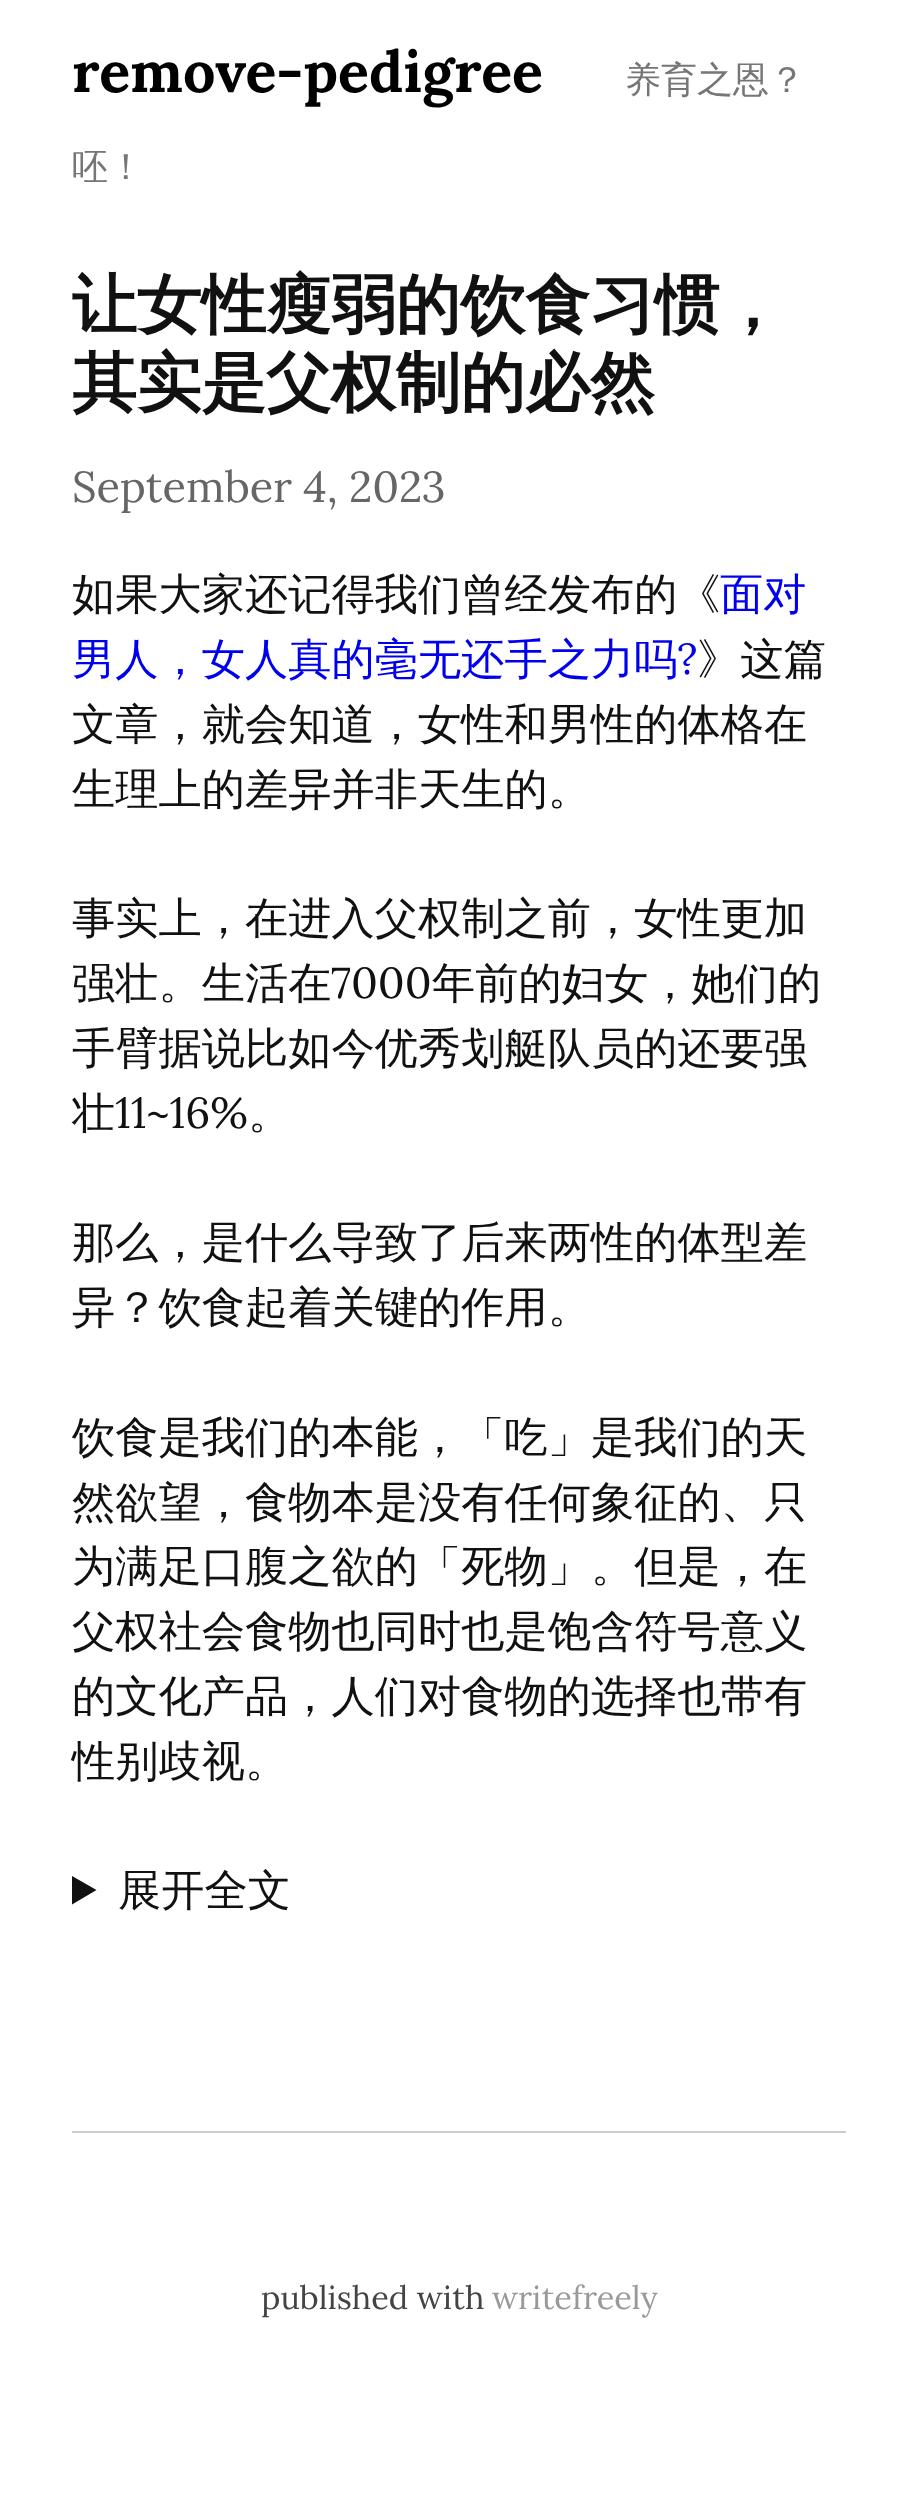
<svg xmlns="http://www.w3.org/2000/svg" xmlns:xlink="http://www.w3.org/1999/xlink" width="916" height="2498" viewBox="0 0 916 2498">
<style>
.cls-1{font:bold 57.5px Lora;fill:#000000}
.cls-2{font:500 36px WenQuanYi Zen Hei;fill:#767676}
.cls-3{font:bold 64.75px WenQuanYi Zen Hei;fill:#111111}
.cls-4{font:43.25px Lora;fill:#666666}
.cls-5{font:500 43.25px WenQuanYi Zen Hei;fill:#111111}
.cls-6{font:500 43.25px WenQuanYi Zen Hei;fill:#0000ee}
.cls-7{font:43.25px Lora;fill:#0000ee}
.cls-8{font:43.25px Lora;fill:#111111}
.cls-9{font:32.5px Lora;fill:#444444}
.cls-10{font:32.5px Lora;fill:#999999}
</style>
<rect width="100%" height="100%" fill="#ffffff"/>
<path fill="#111111" d="M72 1876L96.5 1890L72 1904.5Z"/>
<rect fill="#cccccc" x="72" y="2131" width="774" height="2"/>
<text class="cls-1" x="72" y="92">remove-pedigree</text>
<text class="cls-2" x="625" y="92">养育之恩？</text>
<text class="cls-2" x="72" y="179">呸！</text>
<text class="cls-3"><tspan x="72" y="327">让女性瘦弱的饮食习惯，</tspan><tspan x="72" y="405">其实是父权制的必然</tspan></text>
<text class="cls-4" x="72" y="502">September 4, 2023</text>
<text class="cls-5" x="72" y="609">如果大家还记得我们曾经发布的《</text>
<text class="cls-6" x="720" y="609">面对</text>
<text class="cls-6" x="72" y="674">男人，女人真的毫无还手之力吗</text>
<text class="cls-7" x="677" y="674">?</text>
<text class="cls-5" x="697" y="674">》这篇</text>
<text class="cls-5"><tspan x="72" y="739">文章，就会知道，女性和男性的体格在</tspan><tspan x="72" y="804">生理上的差异并非天生的。</tspan></text>
<text class="cls-5"><tspan x="72" y="933">事实上，在进入父权制之前，女性更加</tspan><tspan x="72" y="998">强壮。生活在</tspan></text>
<text class="cls-8" x="331" y="998">7000</text>
<text class="cls-5" x="432" y="998">年前的妇女，她们的</text>
<text class="cls-5"><tspan x="72" y="1063">手臂据说比如今优秀划艇队员的还要强</tspan><tspan x="72" y="1128">壮</tspan></text>
<text class="cls-8" x="115" y="1128">11~16%</text>
<text class="cls-5" x="248" y="1128">。</text>
<text class="cls-5"><tspan x="72" y="1257">那么，是什么导致了后来两性的体型差</tspan><tspan x="72" y="1322">异？饮食起着关键的作用。</tspan></text>
<text class="cls-5"><tspan x="72" y="1452">饮食是我们的本能，「吃」是我们的天</tspan><tspan x="72" y="1517">然欲望，食物本是没有任何象征的、只</tspan><tspan x="72" y="1581">为满足口腹之欲的「死物」。但是，在</tspan><tspan x="72" y="1646">父权社会食物也同时也是饱含符号意义</tspan><tspan x="72" y="1711">的文化产品，人们对食物的选择也带有</tspan><tspan x="72" y="1776">性别歧视。</tspan></text>
<text class="cls-5" x="118" y="1905">展开全文</text>
<text class="cls-9" x="261" y="2309">published with</text>
<text class="cls-10" x="492" y="2309">writefreely</text>
</svg>
